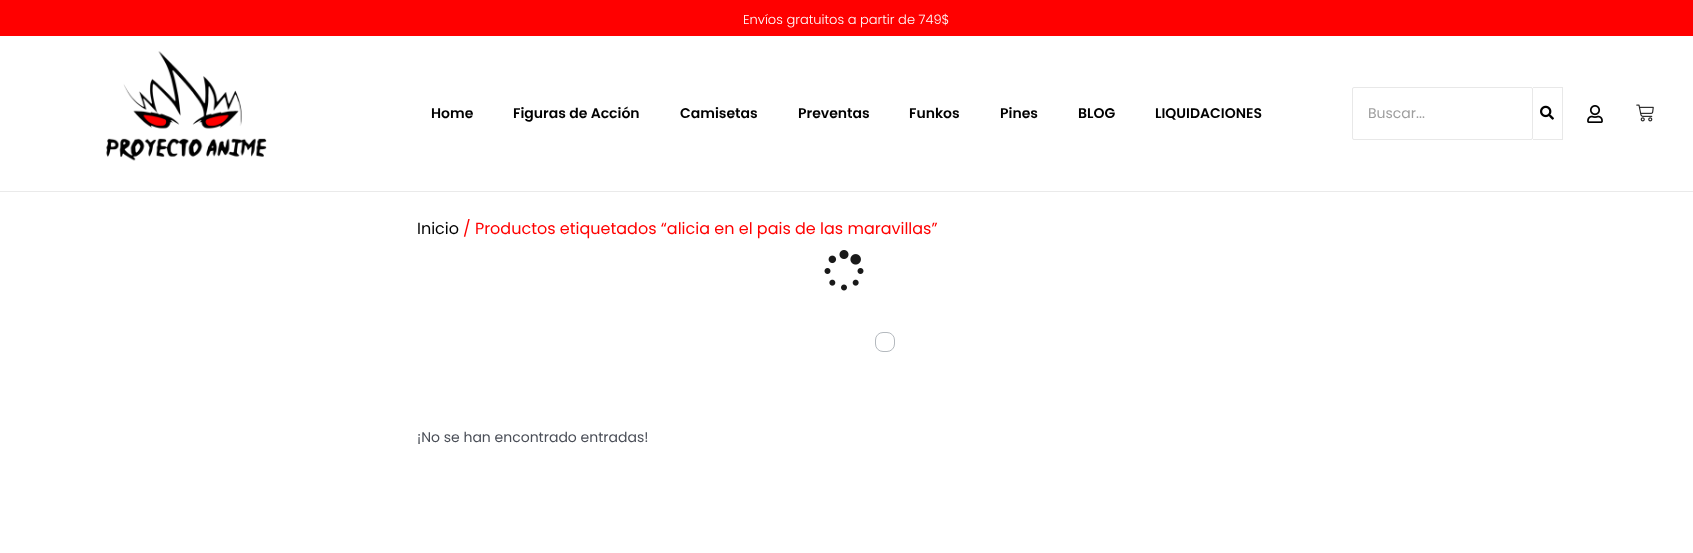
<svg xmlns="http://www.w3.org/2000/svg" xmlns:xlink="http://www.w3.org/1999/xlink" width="1693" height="553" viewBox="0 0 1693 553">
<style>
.cls-1{font:300 13px Poppins;fill:#ffffff}
.cls-2{font:600 14px Poppins;fill:#000000}
.cls-3{font:14px Poppins;fill:#9e9e9e}
.cls-4{font:16px Poppins;fill:#000000}
.cls-5{font:16px Poppins;fill:#ff0000}
.cls-6{font:14px Poppins;fill:#4b4f58}
</style>
<rect width="100%" height="100%" fill="#ffffff"/>
<rect fill="#ff0000" x="0" y="0" width="1693" height="36"/>
<rect fill="#eaeaea" x="0" y="191" width="1693" height="1"/>
<image xlink:href="image0.png" x="106" y="51" width="161" height="110"/>
<rect fill="none" stroke="#e8e8e8" x="1352.5" y="87.5" width="180" height="52" rx="1.5"/>
<rect fill="#e8e8e8" x="1533" y="87" width="30" height="1"/>
<rect fill="#e8e8e8" x="1562" y="87" width="1" height="53"/>
<rect fill="#e8e8e8" x="1533" y="139" width="30" height="1"/>
<image xlink:href="image1.png" x="1540" y="105" width="14" height="15"/>
<image xlink:href="image2.png" x="1587" y="105" width="16" height="18"/>
<image xlink:href="image3.png" x="1636" y="104" width="18" height="18"/>
<image xlink:href="image4.png" x="824" y="250" width="40" height="41"/>
<rect fill="none" stroke="#b4b9be" x="875.5" y="332.5" width="19" height="19" rx="7.5"/>
<text class="cls-1" x="743" y="24">Envíos gratuitos a partir de 749$</text>
<text class="cls-2" x="431" y="118">Home</text>
<text class="cls-2" x="513" y="118">Figuras de Acción</text>
<text class="cls-2" x="680" y="118">Camisetas</text>
<text class="cls-2" x="798" y="118">Preventas</text>
<text class="cls-2" x="909" y="118">Funkos</text>
<text class="cls-2" x="1000" y="118">Pines</text>
<text class="cls-2" x="1078" y="118">BLOG</text>
<text class="cls-2" x="1155" y="118">LIQUIDACIONES</text>
<text class="cls-3" x="1368" y="118">Buscar...</text>
<text class="cls-4" x="417" y="234">Inicio</text>
<text class="cls-5" x="463" y="234">/ Productos etiquetados “alicia en el pais de las maravillas”</text>
<text class="cls-6" x="417" y="442">¡No se han encontrado entradas!</text>
</svg>
